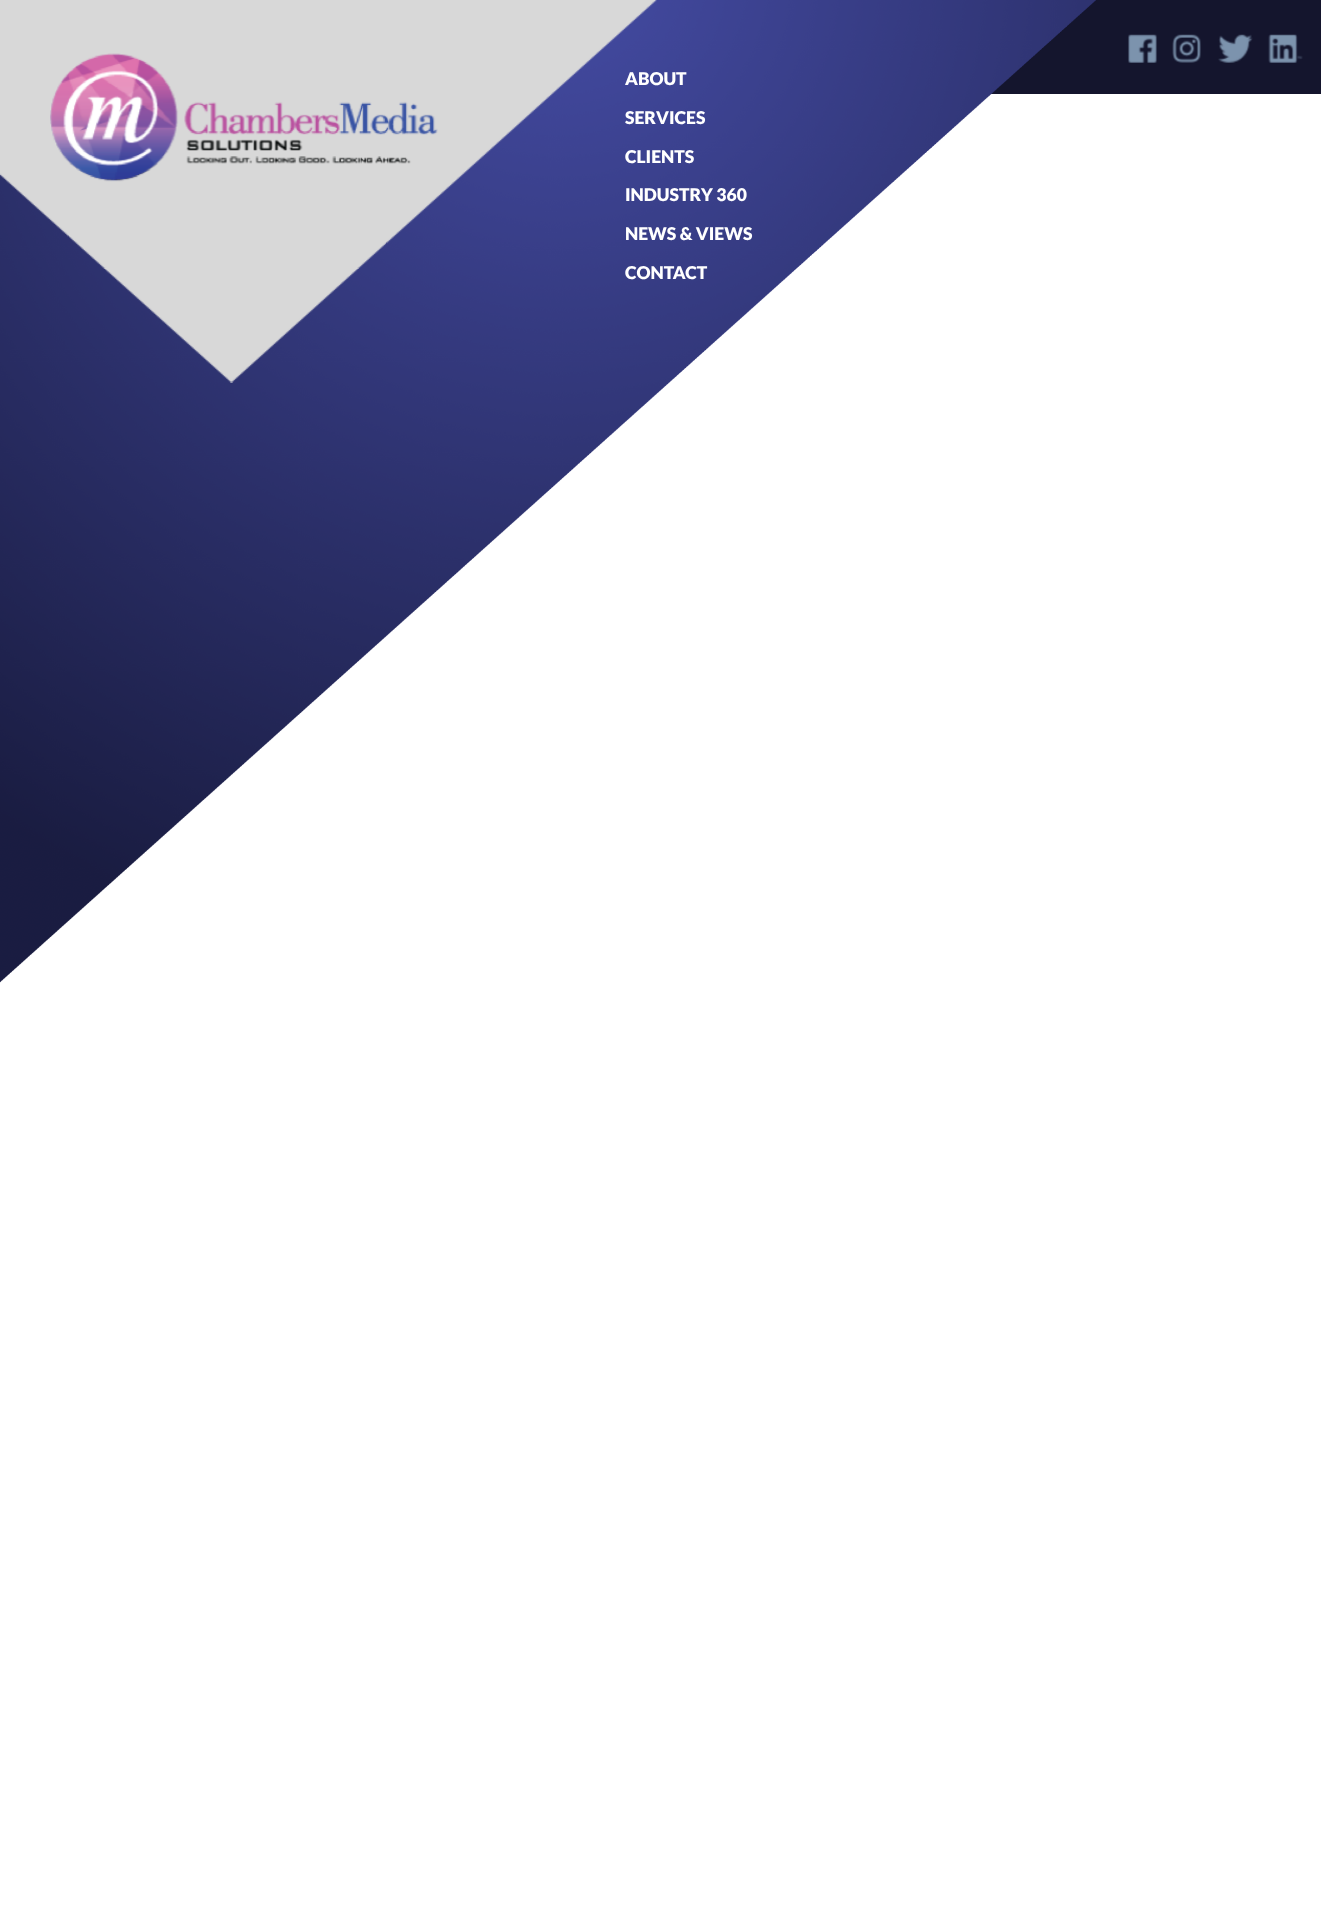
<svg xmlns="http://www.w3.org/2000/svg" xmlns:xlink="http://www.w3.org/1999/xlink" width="1321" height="1932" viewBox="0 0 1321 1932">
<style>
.cls-1{font:900 17.5px Lato;fill:#ffffff}
</style>
<rect width="100%" height="100%" fill="#ffffff"/>
<rect fill="#14152d" x="990" y="0" width="331" height="94"/>
<image xlink:href="image0.png" x="0" y="0" width="1096" height="983"/>
<image xlink:href="image1.png" x="1128" y="34" width="29" height="29"/>
<image xlink:href="image2.png" x="1172" y="34" width="29" height="29"/>
<image xlink:href="image3.png" x="1218" y="34" width="35" height="29"/>
<image xlink:href="image4.png" x="1268" y="34" width="35" height="29"/>
<image xlink:href="image5.png" x="0" y="0" width="657" height="383"/>
<image xlink:href="image6.png" x="50" y="53" width="388" height="129"/>
<text class="cls-1" x="625" y="85">ABOUT</text>
<text class="cls-1" x="625" y="124">SERVICES</text>
<text class="cls-1" x="625" y="163">CLIENTS</text>
<text class="cls-1" x="625" y="201">INDUSTRY 360</text>
<text class="cls-1" x="625" y="240">NEWS &amp; VIEWS</text>
<text class="cls-1" x="625" y="279">CONTACT</text>
</svg>
